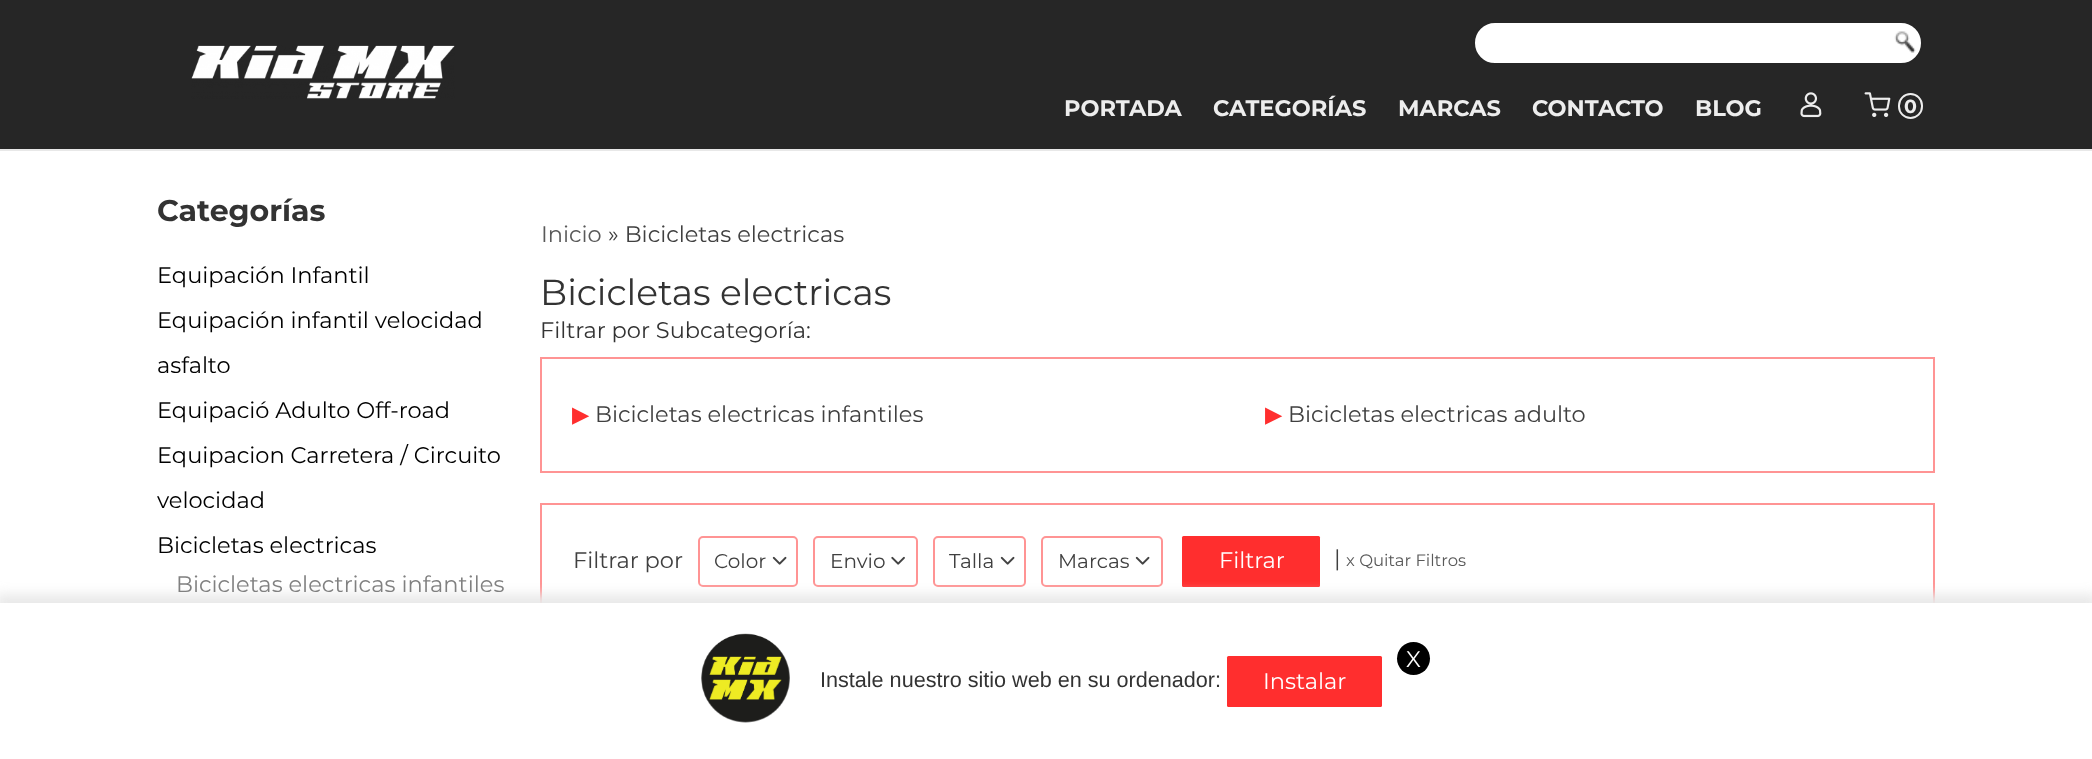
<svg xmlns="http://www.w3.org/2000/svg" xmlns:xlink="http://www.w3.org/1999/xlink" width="2092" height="759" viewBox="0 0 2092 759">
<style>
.cls-1{font:bold 22.5px Montserrat;fill:#ededed}
.cls-2{font:bold 19px Montserrat;fill:#ededed}
.cls-3{font:bold 30px Montserrat;fill:#333333}
.cls-4{font:22.5px Montserrat;fill:#000000}
.cls-5{font:22.5px Montserrat;fill:#808080}
.cls-6{font:22.5px Montserrat;fill:#595959}
.cls-7{font:22.5px Montserrat;fill:#404040}
.cls-8{font:36px Montserrat;fill:#333333}
.cls-9{font:22.5px Montserrat;fill:#333333}
.cls-10{font:22.5px DejaVu Sans;fill:#ff2e2e}
.cls-11{font:20px Montserrat;fill:#404040}
.cls-12{font:22.5px Montserrat;fill:#ffffff}
.cls-13{font:16.5px Montserrat;fill:#595959}
.cls-14{font:21.6px Liberation Sans;fill:#333333}
</style>
<rect width="100%" height="100%" fill="#ffffff"/>
<rect fill="#262626" x="0" y="0" width="2092" height="149"/>
<image xlink:href="image0.png" x="191" y="45" width="264" height="54"/>
<rect fill="#ffffff" stroke="#262626" stroke-width="2" x="1474" y="22" width="448" height="42" rx="21"/>
<image xlink:href="image1.png" x="1894" y="31" width="22" height="22"/>
<rect fill="#e8e8e8" x="0" y="149" width="2092" height="2"/>
<image xlink:href="image2.png" x="1800" y="92" width="22" height="26"/>
<image xlink:href="image3.png" x="1864" y="92" width="27" height="25"/>
<rect fill="none" stroke="#ededed" stroke-width="2" x="1899" y="94" width="23" height="24" rx="11.5"/>
<rect fill="none" stroke="#ff9494" stroke-width="2" x="541" y="358" width="1393" height="114"/>
<rect fill="none" stroke="#ff9494" stroke-width="2" x="541" y="504" width="1393" height="113"/>
<rect fill="none" stroke="#ff9494" stroke-width="2" x="699" y="537" width="98" height="49" rx="4"/>
<image xlink:href="image4.png" x="772" y="556" width="15" height="9"/>
<rect fill="none" stroke="#ff9494" stroke-width="2" x="814" y="537" width="103" height="49" rx="4"/>
<image xlink:href="image5.png" x="891" y="556" width="14" height="9"/>
<rect fill="none" stroke="#ff9494" stroke-width="2" x="934" y="537" width="91" height="49" rx="4"/>
<image xlink:href="image4.png" x="1000" y="556" width="15" height="9"/>
<rect fill="none" stroke="#ff9494" stroke-width="2" x="1042" y="537" width="120" height="49" rx="4"/>
<image xlink:href="image4.png" x="1135" y="556" width="15" height="9"/>
<rect fill="#ff2e2e" x="1182" y="536" width="138" height="51" rx="1.5"/>
<rect fill="#e9e9e9" filter="blur(6px)" x="-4" y="594" width="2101" height="165"/>
<rect fill="#ffffff" x="0" y="603" width="2092" height="156"/>
<image xlink:href="image6.png" x="701" y="633" width="89" height="90"/>
<circle fill="#000000" cx="1413.5" cy="658.5" r="16.5"/>
<rect fill="#ff2e2e" x="1227" y="656" width="155" height="51" rx="1.5"/>
<text class="cls-1" x="1064" y="116">PORTADA</text>
<text class="cls-1" x="1213" y="116">CATEGORÍAS</text>
<text class="cls-1" x="1398" y="116">MARCAS</text>
<text class="cls-1" x="1532" y="116">CONTACTO</text>
<text class="cls-1" x="1695" y="116">BLOG</text>
<text class="cls-2" x="1904" y="113">0</text>
<text class="cls-3" x="157" y="221">Categorías</text>
<text class="cls-4" x="157" y="283">Equipación Infantil</text>
<text class="cls-4" x="157" y="328">Equipación infantil velocidad</text>
<text class="cls-4" x="157" y="373">asfalto</text>
<text class="cls-4" x="157" y="418">Equipació Adulto Off-road</text>
<text class="cls-4" x="157" y="463">Equipacion Carretera / Circuito</text>
<text class="cls-4" x="157" y="508">velocidad</text>
<text class="cls-4" x="157" y="553">Bicicletas electricas</text>
<text class="cls-5" x="176" y="592">Bicicletas electricas infantiles</text>
<text class="cls-6" x="541" y="242">Inicio</text>
<text class="cls-7" x="608" y="242">» Bicicletas electricas</text>
<text class="cls-8" x="540" y="305">Bicicletas electricas</text>
<text class="cls-9" x="540" y="338">Filtrar por Subcategoría:</text>
<text class="cls-10" x="572" y="422">▶</text>
<text class="cls-7" x="595" y="422">Bicicletas electricas infantiles</text>
<text class="cls-10" x="1265" y="422">▶</text>
<text class="cls-7" x="1288" y="422">Bicicletas electricas adulto</text>
<text class="cls-7" x="573" y="568">Filtrar por</text>
<text class="cls-11" x="714" y="568">Color</text>
<text class="cls-11" x="830" y="568">Envio</text>
<text class="cls-11" x="949" y="568">Talla</text>
<text class="cls-11" x="1058" y="568">Marcas</text>
<text class="cls-12" x="1219" y="568">Filtrar</text>
<text class="cls-7" x="1334" y="566">|</text>
<text class="cls-13" x="1346" y="566">x Quitar Filtros</text>
<text class="cls-12" x="1406" y="667">X</text>
<text class="cls-14" x="820" y="687">Instale nuestro sitio web en su ordenador:</text>
<text class="cls-12" x="1263" y="689">Instalar</text>
</svg>
